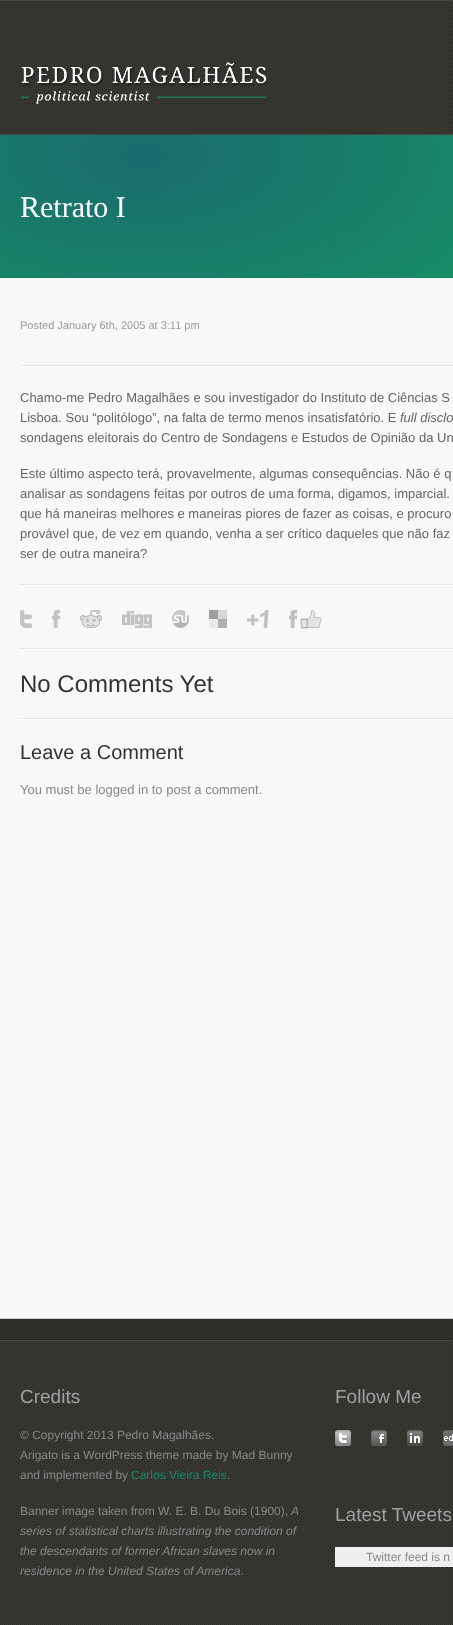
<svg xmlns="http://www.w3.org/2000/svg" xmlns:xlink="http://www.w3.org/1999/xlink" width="453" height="1625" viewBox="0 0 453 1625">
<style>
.cls-1{font:30px Liberation Serif;fill:#ffffff}
.cls-2{font:11px Liberation Sans;fill:#999999}
.cls-3{font:13px Liberation Sans;fill:#666666}
.cls-4{font:italic 13px Liberation Sans;fill:#666666}
.cls-5{font:24px Liberation Sans;fill:#333333}
.cls-6{font:20px Liberation Sans;fill:#333333}
.cls-7{font:13px Liberation Sans;fill:#888888}
.cls-8{font:19px Liberation Sans;fill:#a1a1a1}
.cls-9{font:12px Liberation Sans;fill:#888888}
.cls-10{font:12px Liberation Sans;fill:#178b66}
.cls-11{font:italic 12px Liberation Sans;fill:#888888}
</style>
<defs>
<radialGradient id="g1" gradientUnits="userSpaceOnUse" cx="0" cy="0" r="1" gradientTransform="matrix(739 0 0 354 144 156)"><stop offset="0" stop-color="#1a6b6e"/><stop offset="1" stop-color="#14a85e"/></radialGradient>
</defs>
<rect width="100%" height="100%" fill="#f8f8f8"/>
<image xlink:href="image0.png" x="0" y="1" width="453" height="133"/>
<rect fill="#464743" x="0" y="0" width="453" height="1"/>
<rect fill="#464743" x="0" y="134" width="453" height="1"/>
<image xlink:href="image1.png" x="21" y="62" width="247" height="42"/>
<rect fill="url(#g1)" x="0" y="135" width="453" height="143"/>
<rect fill="#e6e6e6" x="20" y="365" width="433" height="1"/>
<rect fill="#ffffff" x="20" y="366" width="433" height="1"/>
<rect fill="#e6e6e6" x="20" y="584" width="433" height="1"/>
<rect fill="#ffffff" x="20" y="585" width="433" height="1"/>
<image xlink:href="image2.png" x="20" y="610" width="12" height="18"/>
<image xlink:href="image3.png" x="52" y="610" width="8" height="18"/>
<image xlink:href="image4.png" x="80" y="610" width="22" height="18"/>
<image xlink:href="image5.png" x="122" y="611" width="30" height="17"/>
<image xlink:href="image6.png" x="172" y="610" width="17" height="18"/>
<image xlink:href="image7.png" x="209" y="610" width="18" height="18"/>
<image xlink:href="image8.png" x="247" y="610" width="22" height="18"/>
<image xlink:href="image9.png" x="289" y="610" width="33" height="19"/>
<rect fill="#e6e6e6" x="20" y="648" width="433" height="1"/>
<rect fill="#ffffff" x="20" y="649" width="433" height="1"/>
<rect fill="#e6e6e6" x="20" y="718" width="433" height="1"/>
<rect fill="#ffffff" x="20" y="719" width="433" height="1"/>
<image xlink:href="image10.png" x="0" y="1341" width="453" height="284"/>
<image xlink:href="image11.png" x="0" y="1318" width="453" height="23"/>
<image xlink:href="image12.png" x="335" y="1430" width="16" height="16"/>
<image xlink:href="image13.png" x="371" y="1430" width="16" height="16"/>
<image xlink:href="image14.png" x="407" y="1430" width="16" height="16"/>
<image xlink:href="image15.png" x="443" y="1430" width="10" height="16"/>
<rect fill="#efefef" x="335" y="1547" width="118" height="20"/>
<text class="cls-1" x="20" y="217">Retrato I</text>
<text class="cls-2" x="20" y="329">Posted January 6th, 2005 at 3:11 pm</text>
<text class="cls-3"><tspan x="20" y="402">Chamo-me Pedro Magalhães e sou investigador do Instituto de Ciências S</tspan><tspan x="20" y="422">Lisboa. Sou “politólogo”, na falta de termo menos insatisfatório. E</tspan></text>
<text class="cls-4" x="400" y="422">full disclo</text>
<text class="cls-3" x="20" y="442">sondagens eleitorais do Centro de Sondagens e Estudos de Opinião da Un</text>
<text class="cls-3"><tspan x="20" y="478">Este último aspecto terá, provavelmente, algumas consequências. Não é q</tspan><tspan x="20" y="498">analisar as sondagens feitas por outros de uma forma, digamos, imparcial.</tspan><tspan x="20" y="518">que há maneiras melhores e maneiras piores de fazer as coisas, e procuro</tspan><tspan x="20" y="538">provável que, de vez em quando, venha a ser crítico daqueles que não faz</tspan><tspan x="20" y="558">ser de outra maneira?</tspan></text>
<text class="cls-5" x="20" y="692">No Comments Yet</text>
<text class="cls-6" x="20" y="759">Leave a Comment</text>
<text class="cls-7" x="20" y="794">You must be logged</text>
<text class="cls-7" x="138" y="794">in to post a comment.</text>
<text class="cls-8" x="20" y="1403">Credits</text>
<text class="cls-9"><tspan x="20" y="1439">© Copyright 2013 Pedro Magalhães.</tspan><tspan x="20" y="1459">Arigato is a WordPress theme made by Mad Bunny</tspan><tspan x="20" y="1479">and implemented by</tspan></text>
<text class="cls-10" x="131" y="1479">Carlos Vieira Reis</text>
<text class="cls-9" x="227" y="1479">.</text>
<text class="cls-9" x="20" y="1515">Banner image taken from W. E. B. Du Bois (1900),</text>
<text class="cls-11" x="291" y="1515">A</text>
<text class="cls-11"><tspan x="20" y="1535">series of statistical charts illustrating the condition of</tspan><tspan x="20" y="1555">the descendants of former African slaves now in</tspan><tspan x="20" y="1575">residence in the United States of America</tspan></text>
<text class="cls-9" x="240" y="1575">.</text>
<text class="cls-8" x="335" y="1403">Follow Me</text>
<text class="cls-8" x="335" y="1521">Latest Tweets</text>
<text class="cls-9" x="366" y="1561">Twitter feed is n</text>
</svg>
